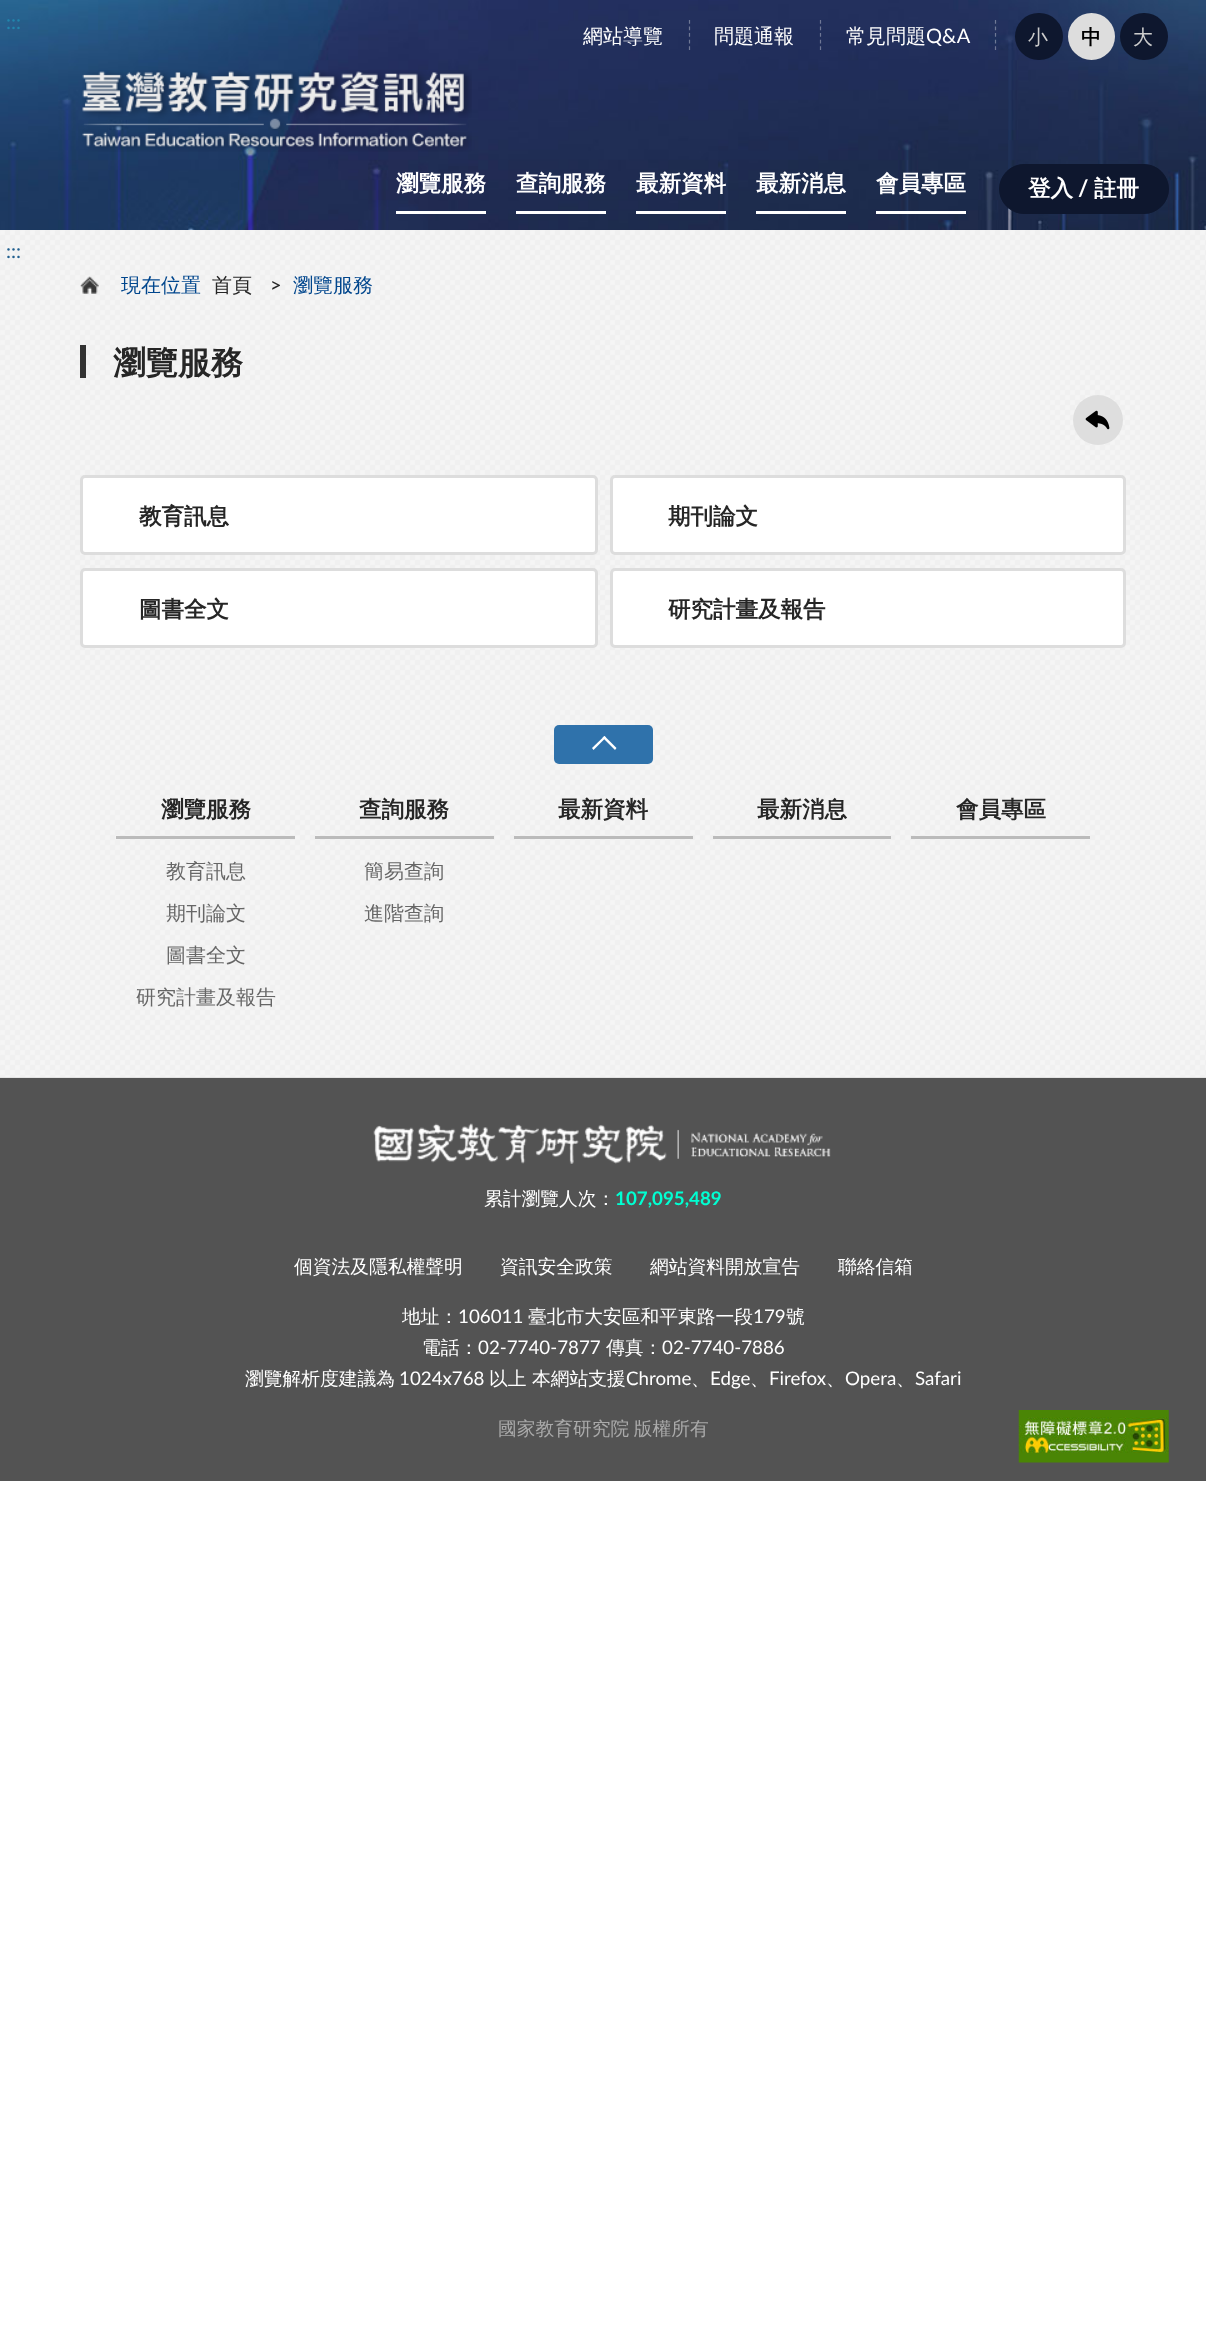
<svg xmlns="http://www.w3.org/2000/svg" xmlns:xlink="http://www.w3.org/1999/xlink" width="1206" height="2343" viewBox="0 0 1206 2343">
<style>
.cls-1{font:20px Lato;fill:#2286ad}
.cls-2{font:500 20px WenQuanYi Zen Hei;fill:#ffffff}
.cls-3{font:20px Lato;fill:#ffffff}
.cls-4{font:500 20px WenQuanYi Zen Hei;fill:#cccccc}
.cls-5{font:bold 20px WenQuanYi Zen Hei;fill:#000000}
.cls-6{font:bold 22.5px WenQuanYi Zen Hei;fill:#ffffff}
.cls-7{font:bold 22.5px Lato;fill:#ffffff}
.cls-8{font:20px Lato;fill:#215f8f}
.cls-9{font:500 20px WenQuanYi Zen Hei;fill:#00468d}
.cls-10{font:500 20px WenQuanYi Zen Hei;fill:#262626}
.cls-11{font:20px Lato;fill:#262626}
.cls-12{font:bold 32.5px WenQuanYi Zen Hei;fill:#262626}
.cls-13{font:bold 22.5px WenQuanYi Zen Hei;fill:#262626}
.cls-14{font:500 20px WenQuanYi Zen Hei;fill:#666666}
.cls-15{font:500 18.75px WenQuanYi Zen Hei;fill:#ffffff}
.cls-16{font:bold 18.75px Lato;fill:#00ffd2}
.cls-17{font:18.75px Lato;fill:#ffffff}
.cls-18{font:500 18.75px WenQuanYi Zen Hei;fill:#aaaaaa}
</style>
<rect width="100%" height="100%" fill="#ffffff"/>
<rect fill="#dedede" x="0" y="1077" width="1206" height="1"/>
<image xlink:href="image0.png" x="0" y="0" width="1206" height="230"/>
<path fill="none" stroke="#6f7895" stroke-width="1.2" stroke-dasharray="3.75 2.81" d="M689.5 20V50"/>
<path fill="none" stroke="#6f7795" stroke-width="1.2" stroke-dasharray="3.75 2.81" d="M820.5 20V50"/>
<path fill="none" stroke="#ffffff" stroke-opacity="0.35" stroke-width="1.2" stroke-dasharray="3.75 2.81" d="M995.5 20V50"/>
<rect fill="#0e172e" x="1015" y="13" width="48" height="47" rx="23.5"/>
<circle fill="#dddddd" cx="1091.5" cy="36.5" r="23.5"/>
<rect fill="#0e172e" x="1120" y="13" width="48" height="47" rx="23.5"/>
<image xlink:href="image1.png" x="82" y="70" width="390" height="82"/>
<rect fill="#ffffff" x="396" y="211" width="90" height="3"/>
<rect fill="#ffffff" x="516" y="211" width="90" height="3"/>
<rect fill="#ffffff" x="636" y="211" width="90" height="3"/>
<rect fill="#ffffff" x="756" y="211" width="90" height="3"/>
<rect fill="#ffffff" x="876" y="211" width="90" height="3"/>
<rect fill="#0e172e" stroke="#0e172e" x="999.5" y="164.5" width="169" height="49" rx="24.5"/>
<image xlink:href="image2.png" x="0" y="230" width="1206" height="490"/>
<image xlink:href="image3.png" x="80" y="276" width="19" height="18"/>
<rect fill="#333333" x="80" y="345" width="6" height="33"/>
<circle fill="#dedede" cx="1098" cy="420" r="25"/>
<image xlink:href="image4.png" x="1085" y="410" width="25" height="20"/>
<rect fill="#ffffff" stroke="#dddddd" stroke-width="3" x="81.5" y="476.5" width="515" height="77" rx="3.5"/>
<rect fill="#ffffff" stroke="#dddddd" stroke-width="3" x="611.5" y="476.5" width="513" height="77" rx="3.5"/>
<rect fill="#ffffff" stroke="#dddddd" stroke-width="3" x="81.5" y="569.5" width="515" height="77" rx="3.5"/>
<rect fill="#ffffff" stroke="#dddddd" stroke-width="3" x="611.5" y="569.5" width="513" height="77" rx="3.5"/>
<image xlink:href="image5.png" x="0" y="720" width="1206" height="358"/>
<rect fill="#2f72ab" x="554" y="725" width="99" height="39" rx="5"/>
<path fill="#ffffff" d="M592 748L604.5 736L606 737.5L593.5 750Z"/>
<path fill="#ffffff" d="M602.5 737.5L604.5 736L616.5 748L615 750Z"/>
<rect fill="#bbbbbb" x="116" y="836" width="179" height="3"/>
<rect fill="#bbbbbb" x="315" y="836" width="179" height="3"/>
<rect fill="#bbbbbb" x="514" y="836" width="179" height="3"/>
<rect fill="#bbbbbb" x="713" y="836" width="178" height="3"/>
<rect fill="#bbbbbb" x="911" y="836" width="179" height="3"/>
<rect fill="#535353" x="0" y="1078" width="1206" height="403"/>
<image xlink:href="image6.png" x="373" y="1123" width="458" height="41"/>
<image xlink:href="image7.png" x="1018" y="1410" width="151" height="53"/>
<text class="cls-1" x="6" y="29">:::</text>
<text class="cls-2" x="583" y="43">網站導覽</text>
<text class="cls-2" x="714" y="43">問題通報</text>
<text class="cls-2" x="846" y="43">常見問題</text>
<text class="cls-3" x="926" y="43">Q&amp;A</text>
<text class="cls-4" x="1028" y="44">小</text>
<text class="cls-5" x="1081" y="44">中</text>
<text class="cls-4" x="1133" y="44">大</text>
<text class="cls-6" x="396" y="191">瀏覽服務</text>
<text class="cls-6" x="516" y="191">查詢服務</text>
<text class="cls-6" x="636" y="191">最新資料</text>
<text class="cls-6" x="756" y="191">最新消息</text>
<text class="cls-6" x="876" y="191">會員專區</text>
<text class="cls-6" x="1028" y="196">登入</text>
<text class="cls-7" x="1078" y="196">/</text>
<text class="cls-6" x="1094" y="196">註冊</text>
<text class="cls-8" x="6" y="258">:::</text>
<text class="cls-9" x="121" y="292">現在位置</text>
<text class="cls-10" x="212" y="292">首頁</text>
<text class="cls-11" x="270" y="292">&gt;</text>
<text class="cls-9" x="293" y="292">瀏覽服務</text>
<text class="cls-12" x="113" y="374">瀏覽服務</text>
<text class="cls-13" x="139" y="524">教育訊息</text>
<text class="cls-13" x="668" y="524">期刊論文</text>
<text class="cls-13" x="139" y="617">圖書全文</text>
<text class="cls-13" x="668" y="617">研究計畫及報告</text>
<text class="cls-13" x="161" y="817">瀏覽服務</text>
<text class="cls-14" x="166" y="878">教育訊息</text>
<text class="cls-14" x="166" y="920">期刊論文</text>
<text class="cls-14" x="166" y="962">圖書全文</text>
<text class="cls-14" x="136" y="1004">研究計畫及報告</text>
<text class="cls-13" x="359" y="817">查詢服務</text>
<text class="cls-14" x="364" y="878">簡易查詢</text>
<text class="cls-14" x="364" y="920">進階查詢</text>
<text class="cls-13" x="558" y="817">最新資料</text>
<text class="cls-13" x="757" y="817">最新消息</text>
<text class="cls-13" x="956" y="817">會員專區</text>
<text class="cls-15" x="484" y="1205">累計瀏覽人次：</text>
<text class="cls-16" x="615" y="1205">107,095,489</text>
<text class="cls-15" x="294" y="1273">個資法及隱私權聲明</text>
<text class="cls-15" x="500" y="1273">資訊安全政策</text>
<text class="cls-15" x="650" y="1273">網站資料開放宣告</text>
<text class="cls-15" x="838" y="1273">聯絡信箱</text>
<text class="cls-15" x="402" y="1323">地址：</text>
<text class="cls-17" x="458" y="1323">106011</text>
<text class="cls-15" x="528" y="1323">臺北市大安區和平東路一段</text>
<text class="cls-17" x="753" y="1323">179</text>
<text class="cls-15" x="786" y="1323">號</text>
<text class="cls-15" x="422" y="1354">電話：</text>
<text class="cls-17" x="478" y="1354">02-7740-7877</text>
<text class="cls-15" x="606" y="1354">傳真：</text>
<text class="cls-17" x="662" y="1354">02-7740-7886</text>
<text class="cls-15" x="245" y="1385">瀏覽解析度建議為</text>
<text class="cls-17" x="399" y="1385">1024x768</text>
<text class="cls-15" x="489" y="1385">以上 本網站支援</text>
<text class="cls-17" x="626" y="1385">Chrome</text>
<text class="cls-15" x="691" y="1385">、</text>
<text class="cls-17" x="710" y="1385">Edge</text>
<text class="cls-15" x="750" y="1385">、</text>
<text class="cls-17" x="769" y="1385">Firefox</text>
<text class="cls-15" x="826" y="1385">、</text>
<text class="cls-17" x="845" y="1385">Opera</text>
<text class="cls-15" x="896" y="1385">、</text>
<text class="cls-17" x="915" y="1385">Safari</text>
<text class="cls-18" x="498" y="1435" word-spacing="-1">國家教育研究院 版權所有</text>
</svg>
